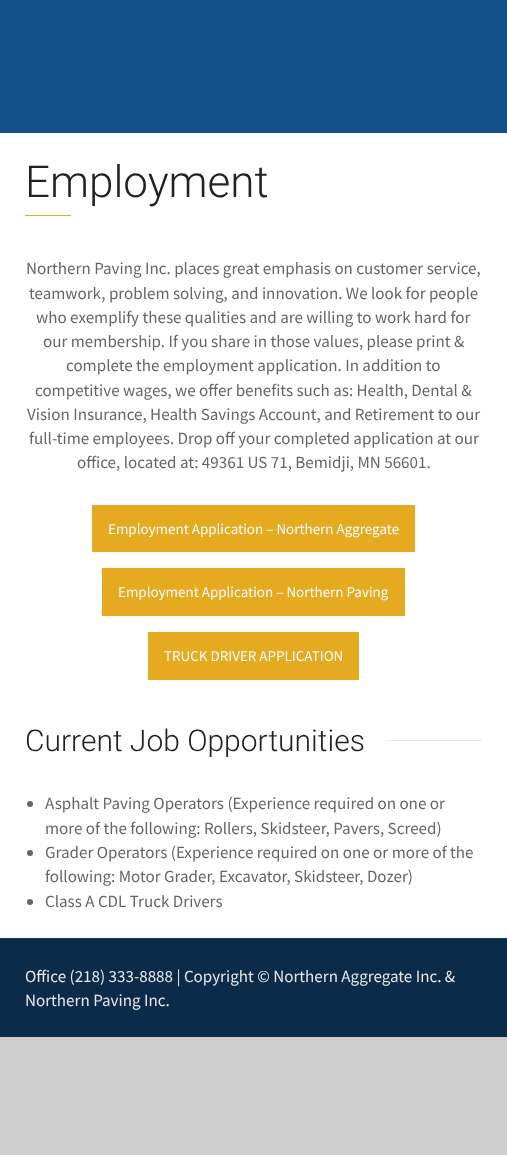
<svg xmlns="http://www.w3.org/2000/svg" xmlns:xlink="http://www.w3.org/1999/xlink" width="507" height="1155" viewBox="0 0 507 1155">
<style>
.cls-1{font:300 44px Roboto;fill:#222222}
.cls-2{font:17px Source Sans Pro;fill:#666666}
.cls-3{font:15px Source Sans Pro;fill:#ffffff}
.cls-4{font:300 30px Roboto;fill:#222222}
.cls-5{font:17px Source Sans Pro;fill:#e8e8e8}
</style>
<rect width="100%" height="100%" fill="#cccccc"/>
<rect fill="#134f89" x="0" y="0" width="507" height="133"/>
<rect fill="#ffffff" x="0" y="133" width="507" height="805"/>
<rect fill="#e6aa20" x="25" y="215" width="46" height="1"/>
<rect fill="#e6aa20" x="92" y="505" width="323" height="47"/>
<rect fill="#e6aa20" x="102" y="568" width="303" height="48"/>
<rect fill="#e6aa20" x="148" y="632" width="211" height="48"/>
<rect fill="#e8e8e8" x="385" y="740" width="97" height="1"/>
<circle fill="#666666" cx="30" cy="804" r="3"/>
<circle fill="#666666" cx="30" cy="853" r="3"/>
<circle fill="#666666" cx="30" cy="902" r="3"/>
<rect fill="#0a2b4a" x="0" y="939" width="507" height="98"/>
<rect fill="#123e68" x="0" y="938" width="507" height="1"/>
<text class="cls-1" x="25" y="197">Employment</text>
<text class="cls-2" x="26" y="274">Northern Paving Inc. places great emphasis on customer service,</text>
<text class="cls-2" x="29" y="299">teamwork, problem solving, and innovation. We look for people</text>
<text class="cls-2" x="36" y="323">who exemplify these qualities and are willing to work hard for</text>
<text class="cls-2" x="43" y="347">our membership. If you share in those values, please print &amp;</text>
<text class="cls-2" x="66" y="371">complete the employment application. In addition to</text>
<text class="cls-2" x="35" y="396">competitive wages, we offer benefits such as: Health, Dental &amp;</text>
<text class="cls-2" x="27" y="420">Vision Insurance, Health Savings Account, and Retirement to our</text>
<text class="cls-2" x="29" y="444">full-time employees. Drop off your completed application at our</text>
<text class="cls-2" x="77" y="468">office, located at: 49361 US 71, Bemidji, MN 56601.</text>
<text class="cls-3" x="108" y="534">Employment Application – Northern Aggregate</text>
<text class="cls-3" x="118" y="597">Employment Application – Northern Paving</text>
<text class="cls-3" x="164" y="661">TRUCK DRIVER APPLICATION</text>
<text class="cls-4" x="25" y="751">Current Job Opportunities</text>
<text class="cls-2"><tspan x="45" y="809">Asphalt Paving Operators (Experience required on one or</tspan><tspan x="45" y="834">more of the following: Rollers, Skidsteer, Pavers, Screed)</tspan><tspan x="45" y="858">Grader Operators (Experience required on one or more of the</tspan><tspan x="45" y="882">following: Motor Grader, Excavator, Skidsteer, Dozer)</tspan><tspan x="45" y="907">Class A CDL Truck Drivers</tspan></text>
<text class="cls-5"><tspan x="25" y="982">Office (218) 333-8888 | Copyright © Northern Aggregate Inc. &amp;</tspan><tspan x="25" y="1006">Northern Paving Inc.</tspan></text>
</svg>
